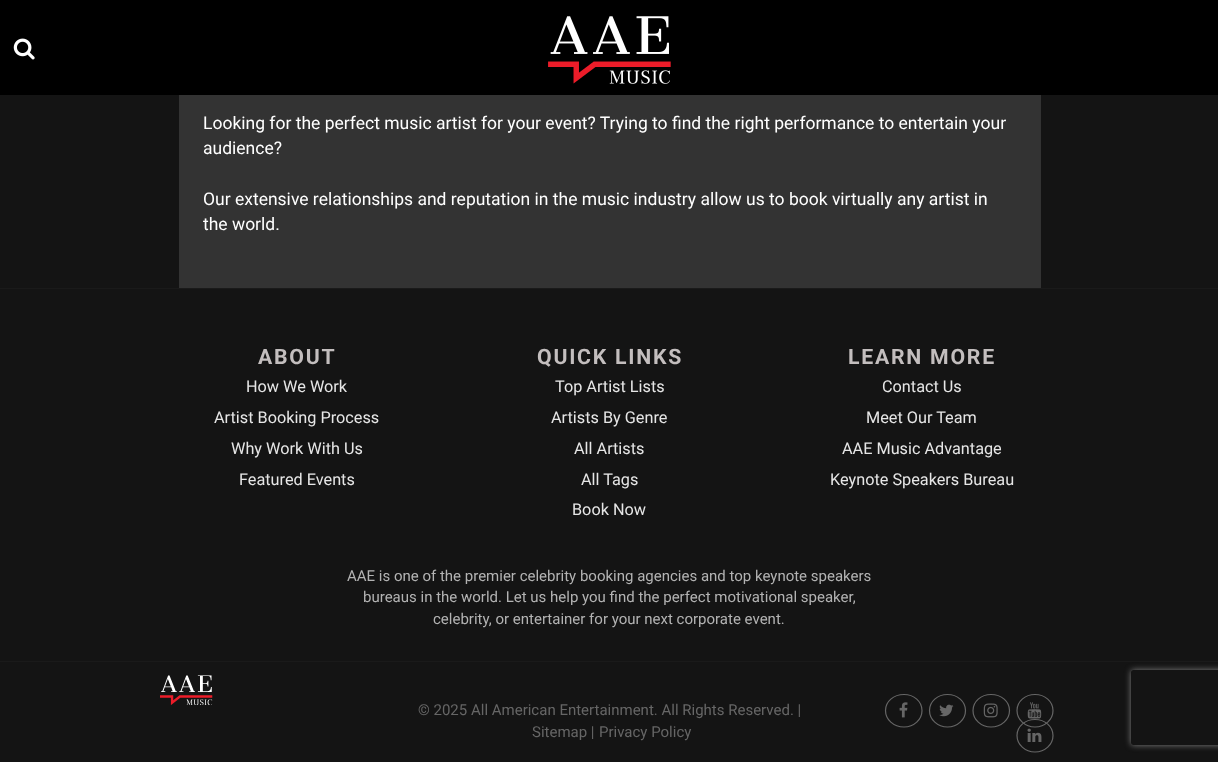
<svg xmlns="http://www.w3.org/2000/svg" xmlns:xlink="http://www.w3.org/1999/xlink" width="1218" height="762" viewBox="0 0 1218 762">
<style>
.cls-1{font:17.5px Roboto;fill:#ffffff}
.cls-2{font:bold 21.25px Roboto;letter-spacing:1.75px;fill:#c3bebe}
.cls-3{font:16.25px Roboto;fill:#e6e6e6}
.cls-4{font:15px Roboto;fill:#b3b3b3}
.cls-5{font:15px Roboto;fill:#666666}
</style>
<defs>
<clipPath id="clip1"><path d="M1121 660H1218V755H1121ZM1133.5 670H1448.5C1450 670 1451 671 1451 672.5V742.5C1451 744 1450 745 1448.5 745H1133.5C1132 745 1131 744 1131 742.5V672.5C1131 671 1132 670 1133.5 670Z" clip-rule="evenodd"/></clipPath>
</defs>
<rect width="100%" height="100%" fill="#141414"/>
<rect fill="#000000" x="0" y="0" width="1218" height="95"/>
<image xlink:href="image0.png" x="13" y="38" width="22" height="22"/>
<image xlink:href="image1.png" x="548" y="16" width="123" height="68"/>
<rect fill="#333333" x="179" y="95" width="862" height="193"/>
<rect fill="#1a1a1a" x="0" y="288" width="1218" height="1"/>
<rect fill="#1a1a1a" x="0" y="661" width="1218" height="1"/>
<image xlink:href="image2.png" x="160" y="675" width="53" height="30"/>
<path fill="none" stroke="#666666" stroke-width="1.2" d="M904 694.5C914 694.5 922 701.5 922 710.5C922 719.5 914 727 904 727C893.5 727 885.5 719.5 885.5 710.5C885.5 701.5 893.5 694.5 904 694.5Z"/>
<image xlink:href="image3.png" x="899" y="702" width="9" height="16"/>
<path fill="none" stroke="#666666" stroke-width="1.2" d="M947.5 694.5C957.5 694.5 965.5 701.5 965.5 710.5C965.5 719.5 957.5 727 947.5 727C937.5 727 929.5 719.5 929.5 710.5C929.5 701.5 937.5 694.5 947.5 694.5Z"/>
<image xlink:href="image4.png" x="939" y="704" width="15" height="13"/>
<path fill="none" stroke="#666666" stroke-width="1.2" d="M991 694.5C1001.5 694.5 1009.5 701.5 1009.5 710.5C1009.5 719.5 1001.5 727 991 727C981 727 973 719.5 973 710.5C973 701.5 981 694.5 991 694.5Z"/>
<image xlink:href="image5.png" x="983" y="703" width="15" height="15"/>
<path fill="none" stroke="#666666" stroke-width="1.2" d="M1035 694.5C1045 694.5 1053 701.5 1053 710.5C1053 719.5 1045 727 1035 727C1025 727 1017 719.5 1017 710.5C1017 701.5 1025 694.5 1035 694.5Z"/>
<image xlink:href="image6.png" x="1027" y="702" width="15" height="17"/>
<path fill="none" stroke="#666666" stroke-width="1.2" d="M1035 719.5C1045 719.5 1053 726.5 1053 735.5C1053 744.5 1045 752 1035 752C1025 752 1017 744.5 1017 735.5C1017 726.5 1025 719.5 1035 719.5Z"/>
<image xlink:href="image7.png" x="1027" y="728" width="15" height="14"/>
<g clip-path="url(#clip1)">
<rect fill="#808080" filter="blur(3px)" x="1131" y="670" width="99" height="75" rx="2.5"/>
</g>
<text class="cls-1"><tspan x="203" y="129">Looking for the perfect music artist for your event? Trying to find the right performance to entertain your</tspan><tspan x="203" y="154">audience?</tspan></text>
<text class="cls-1"><tspan x="203" y="205">Our extensive relationships and reputation in the music industry allow us to book virtually any artist in</tspan><tspan x="203" y="230">the world.</tspan></text>
<text class="cls-2" x="258" y="364">ABOUT</text>
<text class="cls-3" x="246" y="392">How We Work</text>
<text class="cls-3" x="214" y="423">Artist Booking Process</text>
<text class="cls-3" x="231" y="454">Why Work With Us</text>
<text class="cls-3" x="239" y="485">Featured Events</text>
<text class="cls-2" x="537" y="364">QUICK LINKS</text>
<text class="cls-3" x="555" y="392">Top Artist Lists</text>
<text class="cls-3" x="551" y="423">Artists By Genre</text>
<text class="cls-3" x="574" y="454">All Artists</text>
<text class="cls-3" x="581" y="485">All Tags</text>
<text class="cls-3" x="572" y="515">Book Now</text>
<text class="cls-2" x="848" y="364">LEARN MORE</text>
<text class="cls-3" x="882" y="392">Contact Us</text>
<text class="cls-3" x="866" y="423">Meet Our Team</text>
<text class="cls-3" x="842" y="454">AAE Music Advantage</text>
<text class="cls-3" x="830" y="485">Keynote Speakers Bureau</text>
<text class="cls-4" x="347" y="581">AAE is one of the premier celebrity booking agencies and top keynote speakers</text>
<text class="cls-4" x="363" y="602">bureaus in the world. Let us help you find the perfect motivational speaker,</text>
<text class="cls-4" x="433" y="624">celebrity, or entertainer for your next corporate event.</text>
<text class="cls-5" x="418" y="715">© 2025 All American Entertainment. All Rights Reserved. |</text>
<text class="cls-5" x="532" y="737">Sitemap |</text>
<text class="cls-5" x="599" y="737">Privacy Policy</text>
</svg>
